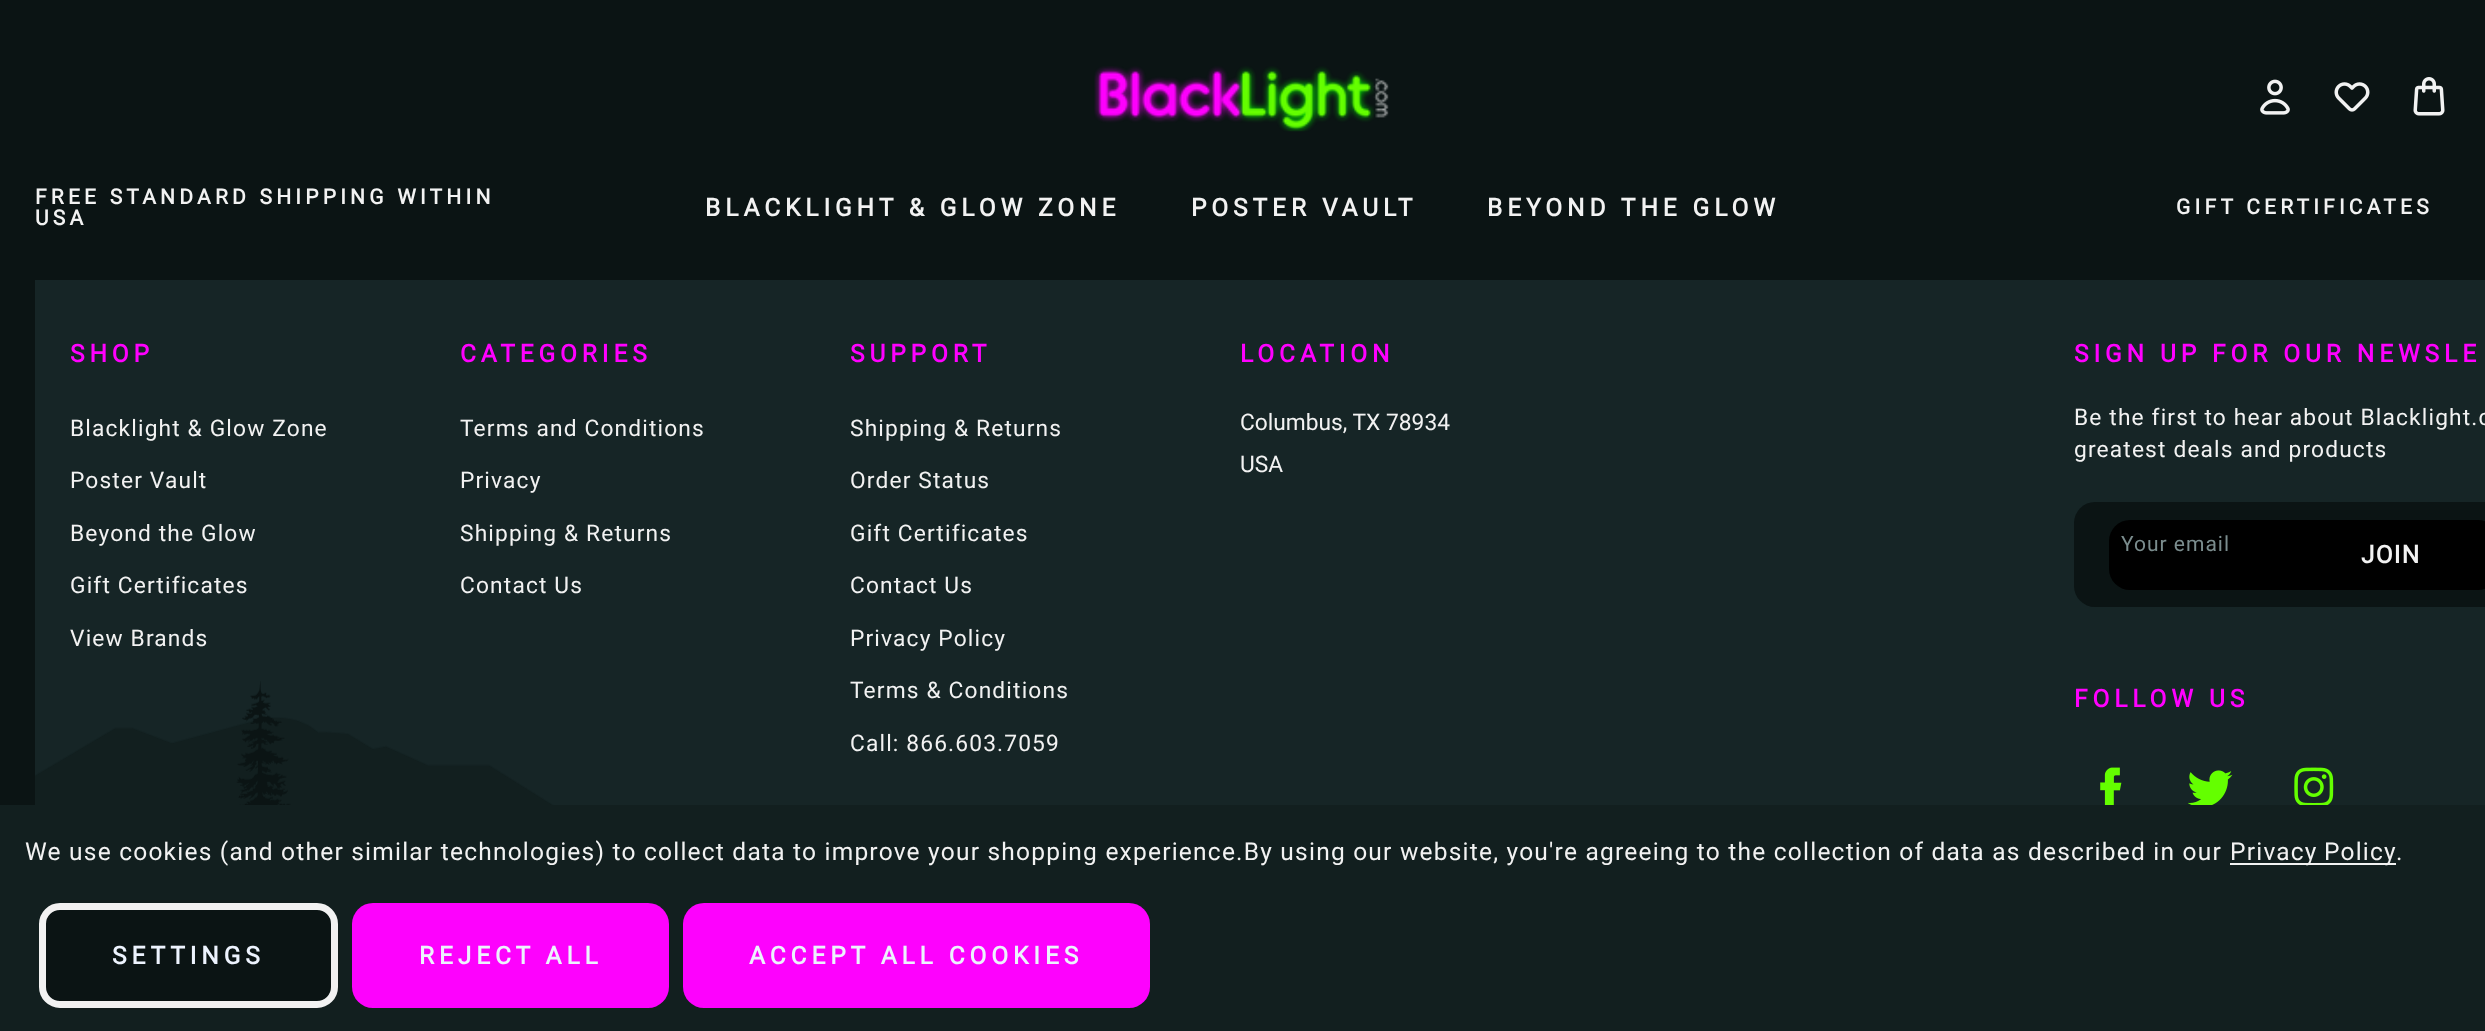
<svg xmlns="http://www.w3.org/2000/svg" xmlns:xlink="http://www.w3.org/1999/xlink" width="2485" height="1031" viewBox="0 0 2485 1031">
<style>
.cls-1{font:bold 21px Roboto;letter-spacing:4.2px;fill:#f2f2f2}
.cls-2{font:bold 24.5px Roboto;letter-spacing:4.9px;fill:#f2f2f2}
.cls-3{font:bold 24.5px Roboto;letter-spacing:4.9px;fill:#ff00ff}
.cls-4{font:22.75px Roboto;letter-spacing:1.15px;fill:#f2f2f2}
.cls-5{font:22.75px Roboto;fill:#f2f2f2}
.cls-6{font:21px Roboto;letter-spacing:1px;fill:#7b8d8e}
.cls-7{font:bold 24.5px Roboto;letter-spacing:1.22px;fill:#f2f2f2}
.cls-8{font:24.5px Roboto;letter-spacing:1.22px;fill:#f2f2f2}
.cls-9{font:bold 24.5px Roboto;letter-spacing:4.9px;fill:#edf3fe}
</style>
<rect width="100%" height="100%" fill="#0b1414"/>
<image xlink:href="image0.png" x="1094" y="66" width="295" height="66"/>
<image xlink:href="image1.png" x="2260" y="79" width="30" height="36"/>
<image xlink:href="image2.png" x="2334" y="82" width="36" height="30"/>
<image xlink:href="image3.png" x="2413" y="77" width="32" height="39"/>
<rect fill="#162526" x="35" y="280" width="2450" height="525"/>
<rect fill="#0b1414" x="2074" y="502" width="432" height="105" rx="21"/>
<rect fill="#000000" x="2109" y="520" width="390" height="70" rx="21"/>
<image xlink:href="image4.png" x="2100" y="767" width="22" height="38"/>
<image xlink:href="image5.png" x="2188" y="770" width="45" height="35"/>
<image xlink:href="image6.png" x="2294" y="767" width="40" height="38"/>
<image xlink:href="image7.png" x="35" y="681" width="519" height="124"/>
<rect fill="#121f1f" x="0" y="805" width="2485" height="226"/>
<rect fill="#f2f2f2" x="2230" y="863" width="166" height="2"/>
<rect fill="#0b1414" stroke="#f2f2f2" stroke-width="7" x="42.5" y="906.5" width="292" height="98" rx="17.5"/>
<rect fill="#fd02fd" x="352" y="903" width="317" height="105" rx="21"/>
<rect fill="#fd02fd" x="683" y="903" width="467" height="105" rx="21"/>
<text class="cls-1"><tspan x="35" y="204">FREE STANDARD SHIPPING WITHIN</tspan><tspan x="35" y="225">USA</tspan></text>
<text class="cls-2" x="705" y="216">BLACKLIGHT &amp; GLOW ZONE</text>
<text class="cls-2" x="1191" y="216">POSTER VAULT</text>
<text class="cls-2" x="1487" y="216">BEYOND THE GLOW</text>
<text class="cls-1" x="2176" y="214">GIFT CERTIFICATES</text>
<text class="cls-3" x="70" y="362">SHOP</text>
<text class="cls-4" x="70" y="436">Blacklight &amp; Glow Zone</text>
<text class="cls-4" x="70" y="488">Poster Vault</text>
<text class="cls-4" x="70" y="541">Beyond the Glow</text>
<text class="cls-4" x="70" y="593">Gift Certificates</text>
<text class="cls-4" x="70" y="646">View Brands</text>
<text class="cls-3" x="460" y="362">CATEGORIES</text>
<text class="cls-4" x="460" y="436">Terms and Conditions</text>
<text class="cls-4" x="460" y="488">Privacy</text>
<text class="cls-4" x="460" y="541">Shipping &amp; Returns</text>
<text class="cls-4" x="460" y="593">Contact Us</text>
<text class="cls-3" x="850" y="362">SUPPORT</text>
<text class="cls-4" x="850" y="436">Shipping &amp; Returns</text>
<text class="cls-4" x="850" y="488">Order Status</text>
<text class="cls-4" x="850" y="541">Gift Certificates</text>
<text class="cls-4" x="850" y="593">Contact Us</text>
<text class="cls-4" x="850" y="646">Privacy Policy</text>
<text class="cls-4" x="850" y="698">Terms &amp; Conditions</text>
<text class="cls-4" x="850" y="751">Call: 866.603.7059</text>
<text class="cls-3" x="1240" y="362">LOCATION</text>
<text class="cls-5"><tspan x="1240" y="430">Columbus, TX 78934</tspan><tspan x="1240" y="472">USA</tspan></text>
<text class="cls-3" x="2074" y="362">SIGN UP FOR OUR NEWSLE</text>
<text class="cls-4"><tspan x="2074" y="425">Be the first to hear about Blacklight.c</tspan><tspan x="2074" y="457">greatest deals and products</tspan></text>
<text class="cls-6" x="2121" y="551">Your email</text>
<text class="cls-7" x="2361" y="563">JOIN</text>
<text class="cls-3" x="2074" y="707">FOLLOW US</text>
<text class="cls-8" x="25" y="860">We use cookies (and other similar technologies) to collect data to improve your shopping experience.By using our website, you're agreeing to the collection of data as described in our</text>
<text class="cls-8" x="2230" y="860" word-spacing="-1">Privacy Policy</text>
<text class="cls-8" x="2396" y="860">.</text>
<text class="cls-9" x="112" y="964">SETTINGS</text>
<text class="cls-9" x="419" y="964">REJECT ALL</text>
<text class="cls-9" x="749" y="964">ACCEPT ALL COOKIES</text>
</svg>
